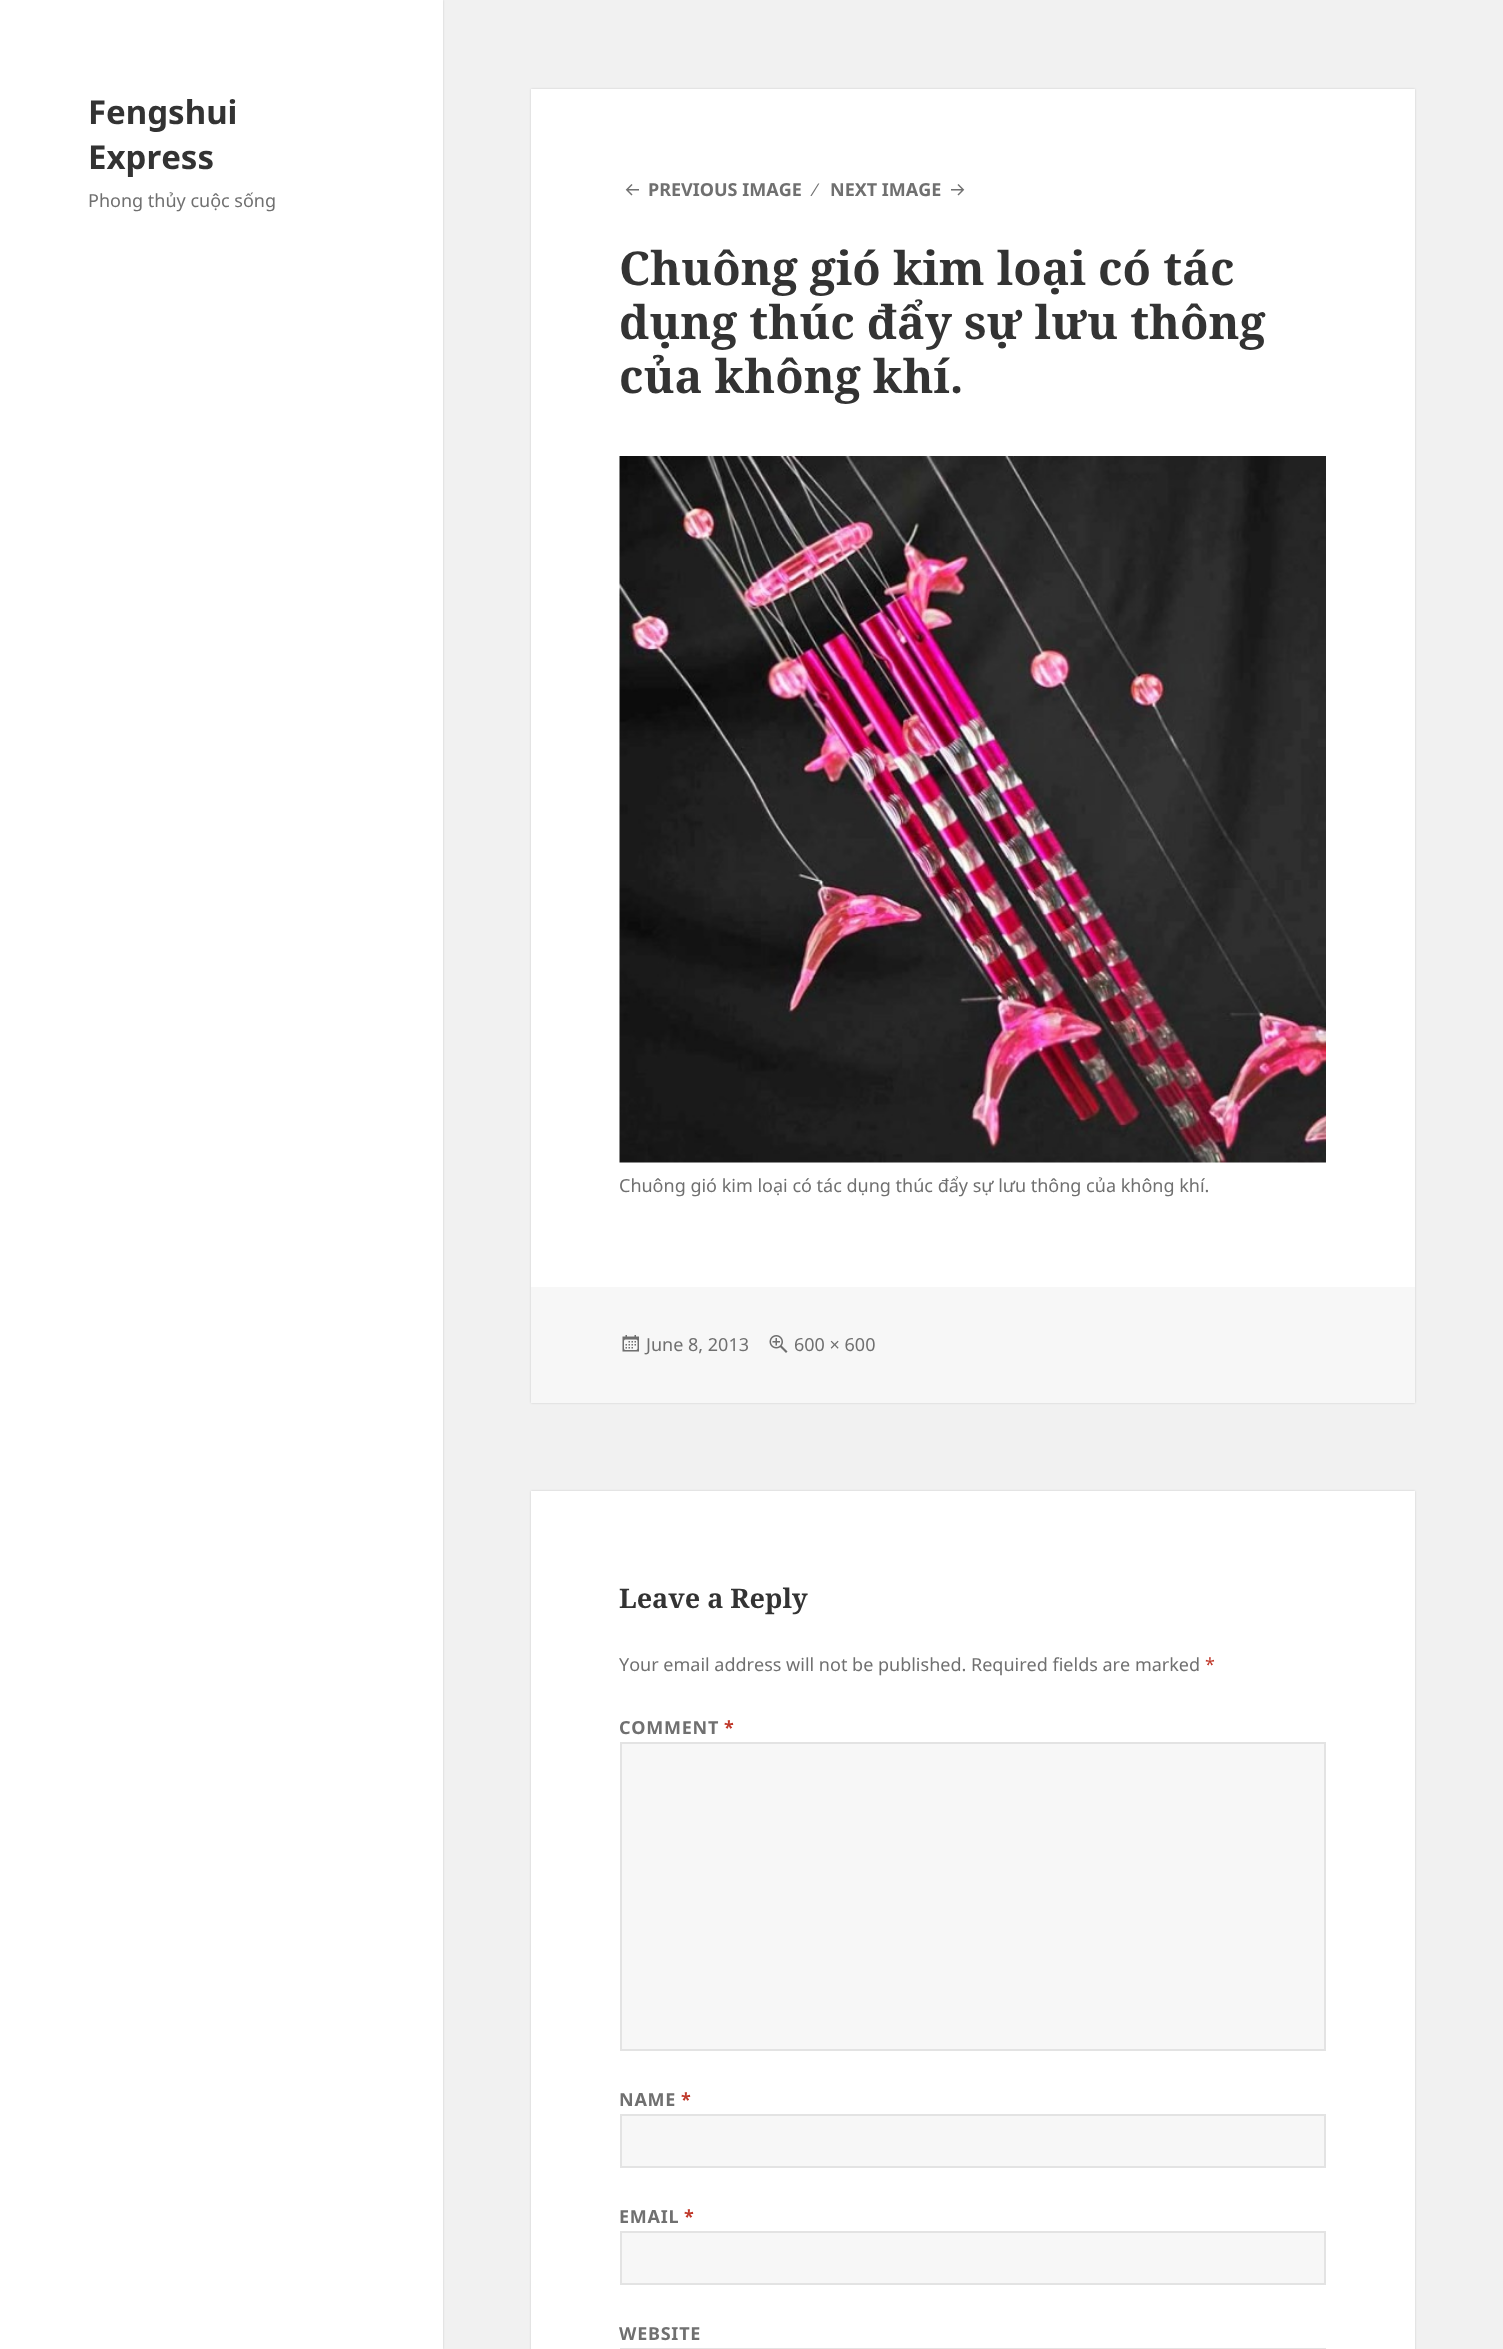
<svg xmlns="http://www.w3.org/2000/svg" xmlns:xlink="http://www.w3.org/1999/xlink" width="1503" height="2349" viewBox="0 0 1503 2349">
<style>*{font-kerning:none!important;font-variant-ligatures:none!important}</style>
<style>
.cls-1{font:bold 33px Noto Sans;fill:#333333}
.cls-2{font:18px Noto Sans;fill:#707070}
.cls-3{font:bold 18px Noto Sans;fill:#707070}
.cls-4{font:18px Liberation Sans;fill:#707070}
.cls-5{font:bold 46.5px Noto Serif;fill:#333333}
.cls-6{font:bold 27px Noto Serif;fill:#333333}
.cls-7{font:18px Noto Sans;fill:#c0392b}
.cls-8{font:bold 18px Noto Sans;letter-spacing:0.75px;fill:#707070}
.cls-9{font:bold 18px Noto Sans;letter-spacing:0.75px;fill:#c0392b}
</style>
<rect width="100%" height="100%" fill="#f1f1f1"/>
<rect fill="#000000" fill-opacity="0.15" filter="blur(1px)" x="0" y="0" width="443" height="2349"/>
<rect fill="#ffffff" x="0" y="0" width="443" height="2349"/>
<rect fill="#000000" fill-opacity="0.15" filter="blur(1px)" x="531" y="89" width="884" height="1314"/>
<rect fill="#ffffff" x="531" y="89" width="884" height="1198"/>
<image xlink:href="image0.png" x="625" y="184" width="14" height="12"/>
<image xlink:href="image1.png" x="951" y="184" width="14" height="12"/>
<image xlink:href="image2.png" x="619" y="456" width="707" height="707"/>
<rect fill="#f7f7f7" x="531" y="1287" width="884" height="116"/>
<image xlink:href="image3.png" x="622" y="1335" width="17" height="17"/>
<image xlink:href="image4.png" x="769" y="1335" width="19" height="18"/>
<rect fill="#000000" fill-opacity="0.15" filter="blur(1px)" x="531" y="1491" width="884" height="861"/>
<rect fill="#ffffff" x="531" y="1491" width="884" height="858"/>
<rect fill="#f7f7f7" stroke="#e3e3e3" stroke-width="2" x="621" y="1743" width="704" height="307"/>
<rect fill="#f7f7f7" stroke="#e3e3e3" stroke-width="2" x="621" y="2115" width="704" height="52"/>
<rect fill="#f7f7f7" stroke="#e3e3e3" stroke-width="2" x="621" y="2232" width="704" height="52"/>
<rect fill="none" stroke="#e3e3e3" stroke-width="2" x="621" y="2349" width="704" height="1"/>
<text class="cls-1"><tspan x="88" y="124">Fengshui</tspan><tspan x="88" y="169">Express</tspan></text>
<text class="cls-2" x="88" y="207">Phong thủy cuộc sống</text>
<text class="cls-3" x="648" y="196">PREVIOUS IMAGE</text>
<text class="cls-4" x="814" y="196">∕</text>
<text class="cls-3" x="830" y="196">NEXT IMAGE</text>
<text class="cls-5"><tspan x="619" y="285">Chuông gió kim loại có tác</tspan><tspan x="619" y="339">dụng thúc đẩy sự lưu thông</tspan><tspan x="619" y="393">của không khí.</tspan></text>
<text class="cls-2" x="619" y="1192">Chuông gió kim loại có tác dụng thúc đẩy sự lưu thông của không khí.</text>
<text class="cls-2" x="646" y="1351">June 8, 2013</text>
<text class="cls-2" x="794" y="1351">600 × 600</text>
<text class="cls-6" x="619" y="1608">Leave a Reply</text>
<text class="cls-2" x="619" y="1671">Your email address will not be published. Required fields are marked</text>
<text class="cls-7" x="1205" y="1671">*</text>
<text class="cls-8" x="619" y="1734">COMMENT</text>
<text class="cls-9" x="724" y="1734">*</text>
<text class="cls-8" x="619" y="2106">NAME</text>
<text class="cls-9" x="681" y="2106">*</text>
<text class="cls-8" x="619" y="2223">EMAIL</text>
<text class="cls-9" x="684" y="2223">*</text>
<text class="cls-8" x="619" y="2340">WEBSITE</text>
</svg>
